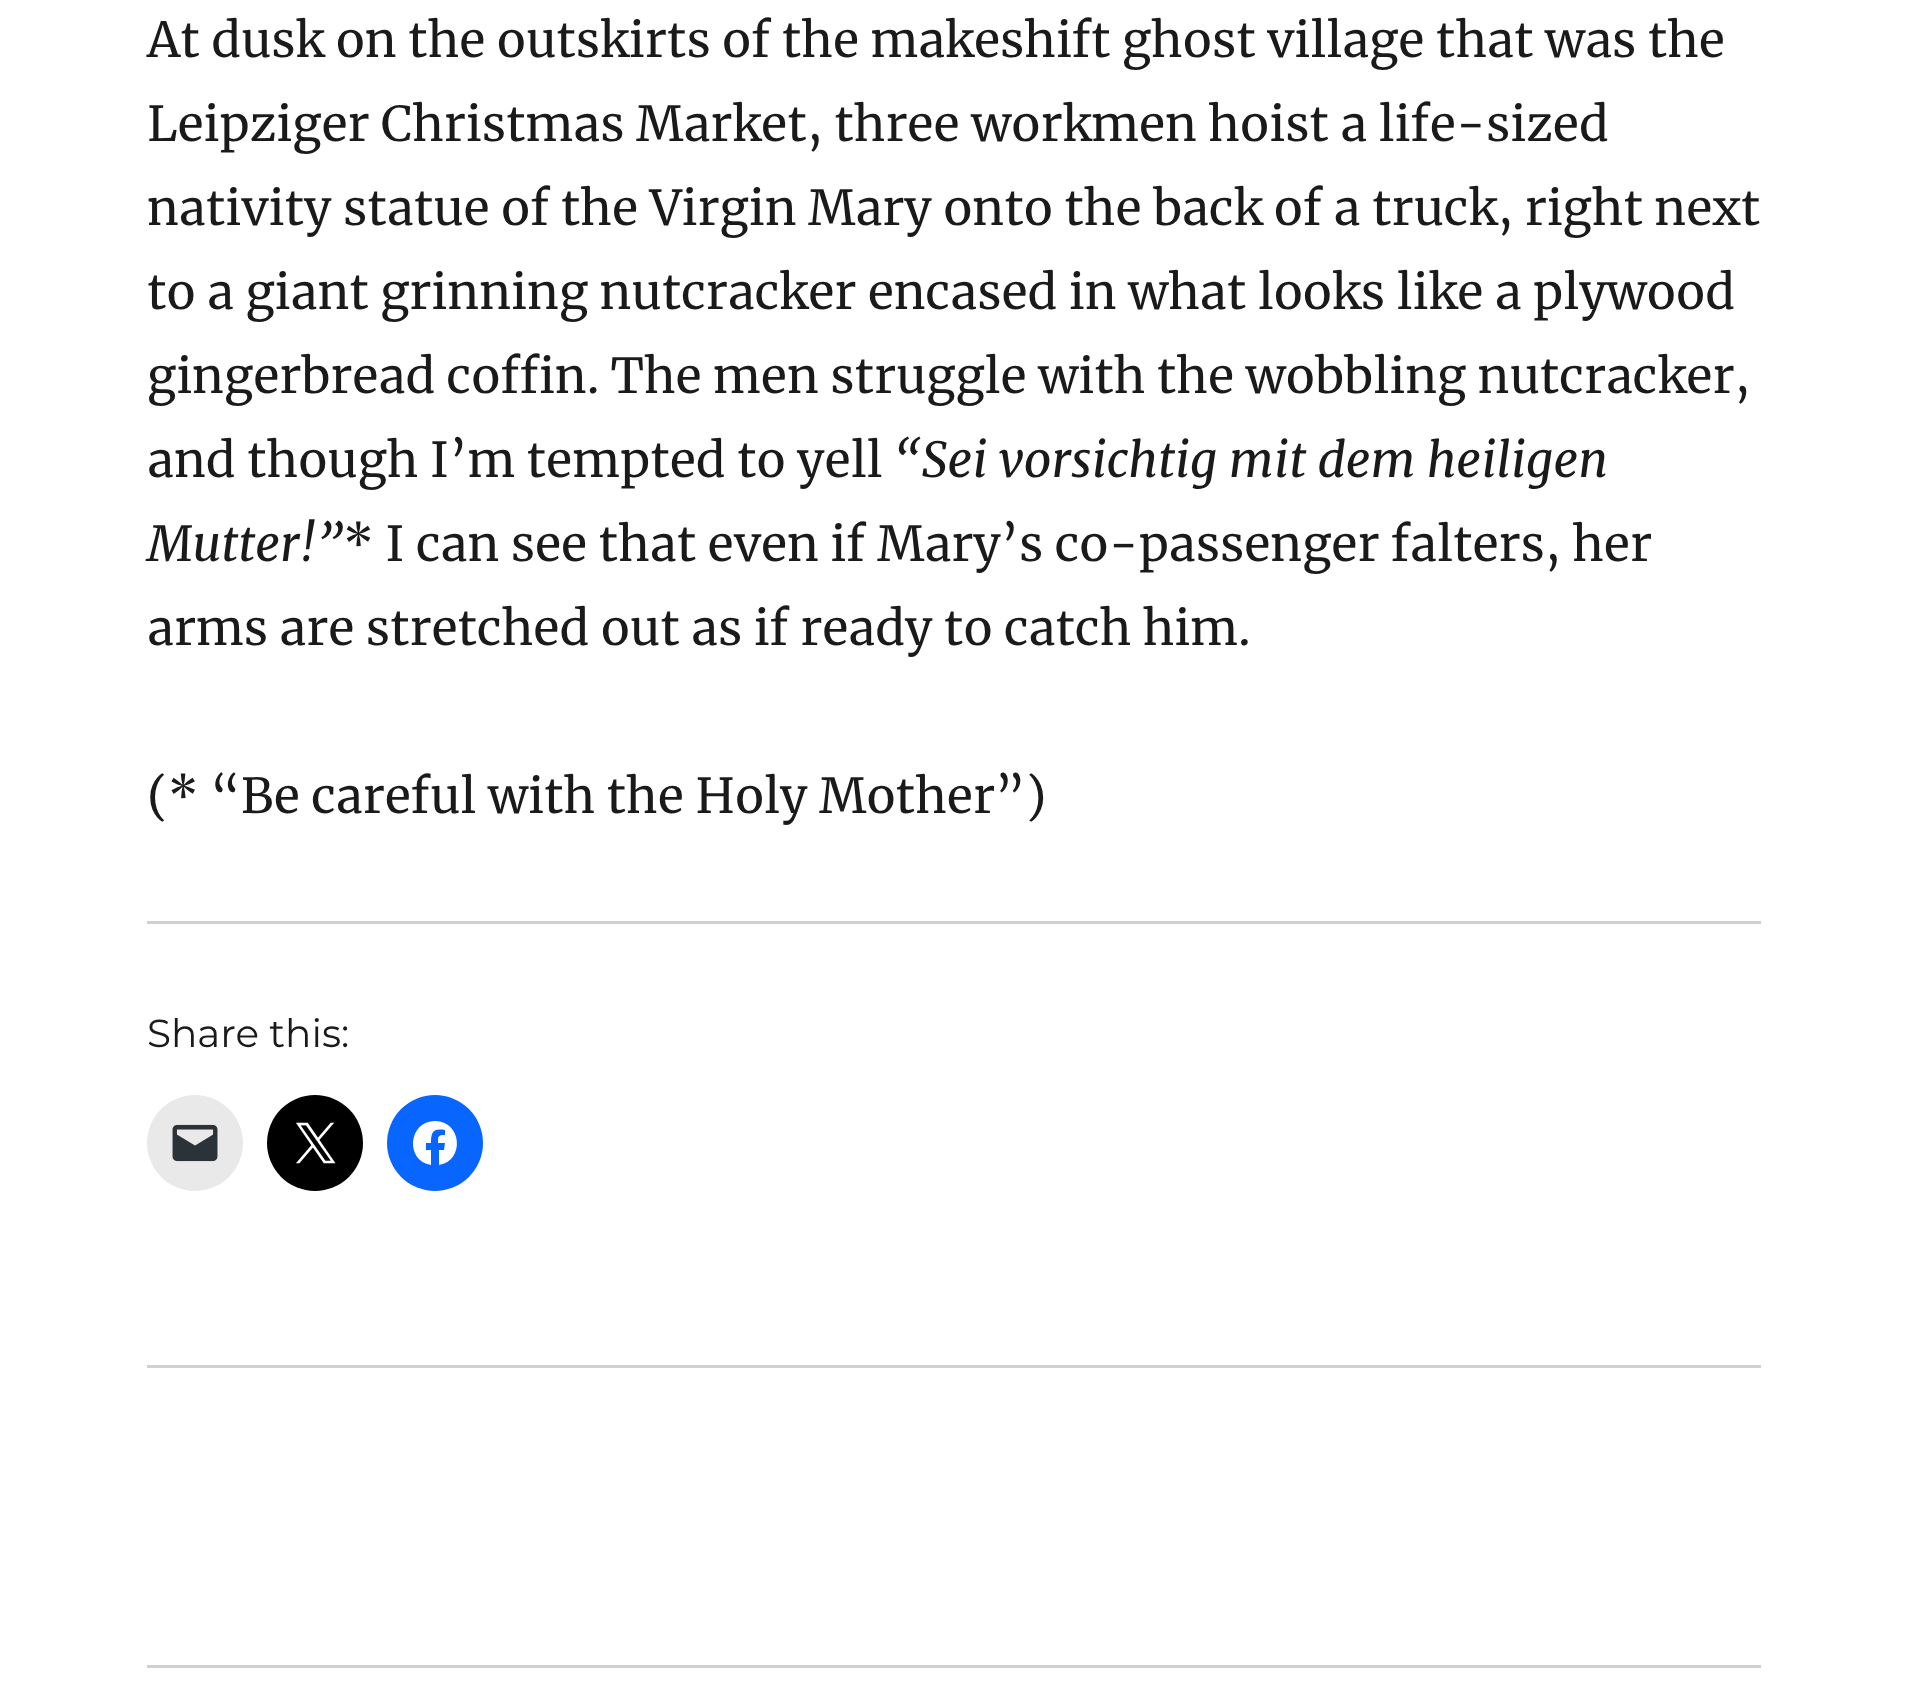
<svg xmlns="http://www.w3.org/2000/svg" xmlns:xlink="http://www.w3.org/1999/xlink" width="1907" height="1693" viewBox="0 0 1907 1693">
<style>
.cls-1{font:48px Merriweather;fill:#1a1a1a}
.cls-2{font:italic 48px Merriweather;fill:#1a1a1a}
.cls-3{font:100 39px Montserrat;fill:#1a1a1a}
</style>
<rect width="100%" height="100%" fill="#ffffff"/>
<rect fill="#d1d1d1" x="147" y="921" width="1614" height="3"/>
<circle fill="#e9e9e9" cx="195" cy="1143" r="48"/>
<image xlink:href="image0.png" x="172" y="1124" width="46" height="38"/>
<circle fill="#000000" cx="315" cy="1143" r="48"/>
<image xlink:href="image1.png" x="296" y="1122" width="40" height="42"/>
<circle fill="#0866ff" cx="435" cy="1143" r="48"/>
<path fill="#ffffff" d="M435 1121C408 1121 405 1161 431 1165V1150H426V1143H431C431 1132 433 1128 445 1130V1135C438 1135 438 1136 438 1143H445L444 1150H439V1165C465 1161 462 1121 435 1121Z"/>
<rect fill="#d1d1d1" x="147" y="1365" width="1614" height="3"/>
<rect fill="#d1d1d1" x="147" y="1665" width="1614" height="3"/>
<text class="cls-1"><tspan x="147" y="57">At dusk on the outskirts of the makeshift ghost village that was the</tspan><tspan x="147" y="141">Leipziger Christmas Market, three workmen hoist a life-sized</tspan><tspan x="147" y="225">nativity statue of the Virgin Mary onto the back of a truck, right next</tspan><tspan x="147" y="309">to a giant grinning nutcracker encased in what looks like a plywood</tspan><tspan x="147" y="393">gingerbread coffin. The men struggle with the wobbling nutcracker,</tspan><tspan x="147" y="477">and though I’m tempted to yell</tspan></text>
<text class="cls-2" x="894" y="477">“Sei vorsichtig mit dem heiligen</text>
<text class="cls-2" x="147" y="561">Mutter!”</text>
<text class="cls-1" x="343" y="561">* I can see that even if Mary’s co-passenger falters, her</text>
<text class="cls-1" x="147" y="645">arms are stretched out as if ready to catch him.</text>
<text class="cls-1" x="147" y="813">(* “Be careful with the Holy Mother”)</text>
<text class="cls-3" x="147" y="1047">Share this:</text>
</svg>
